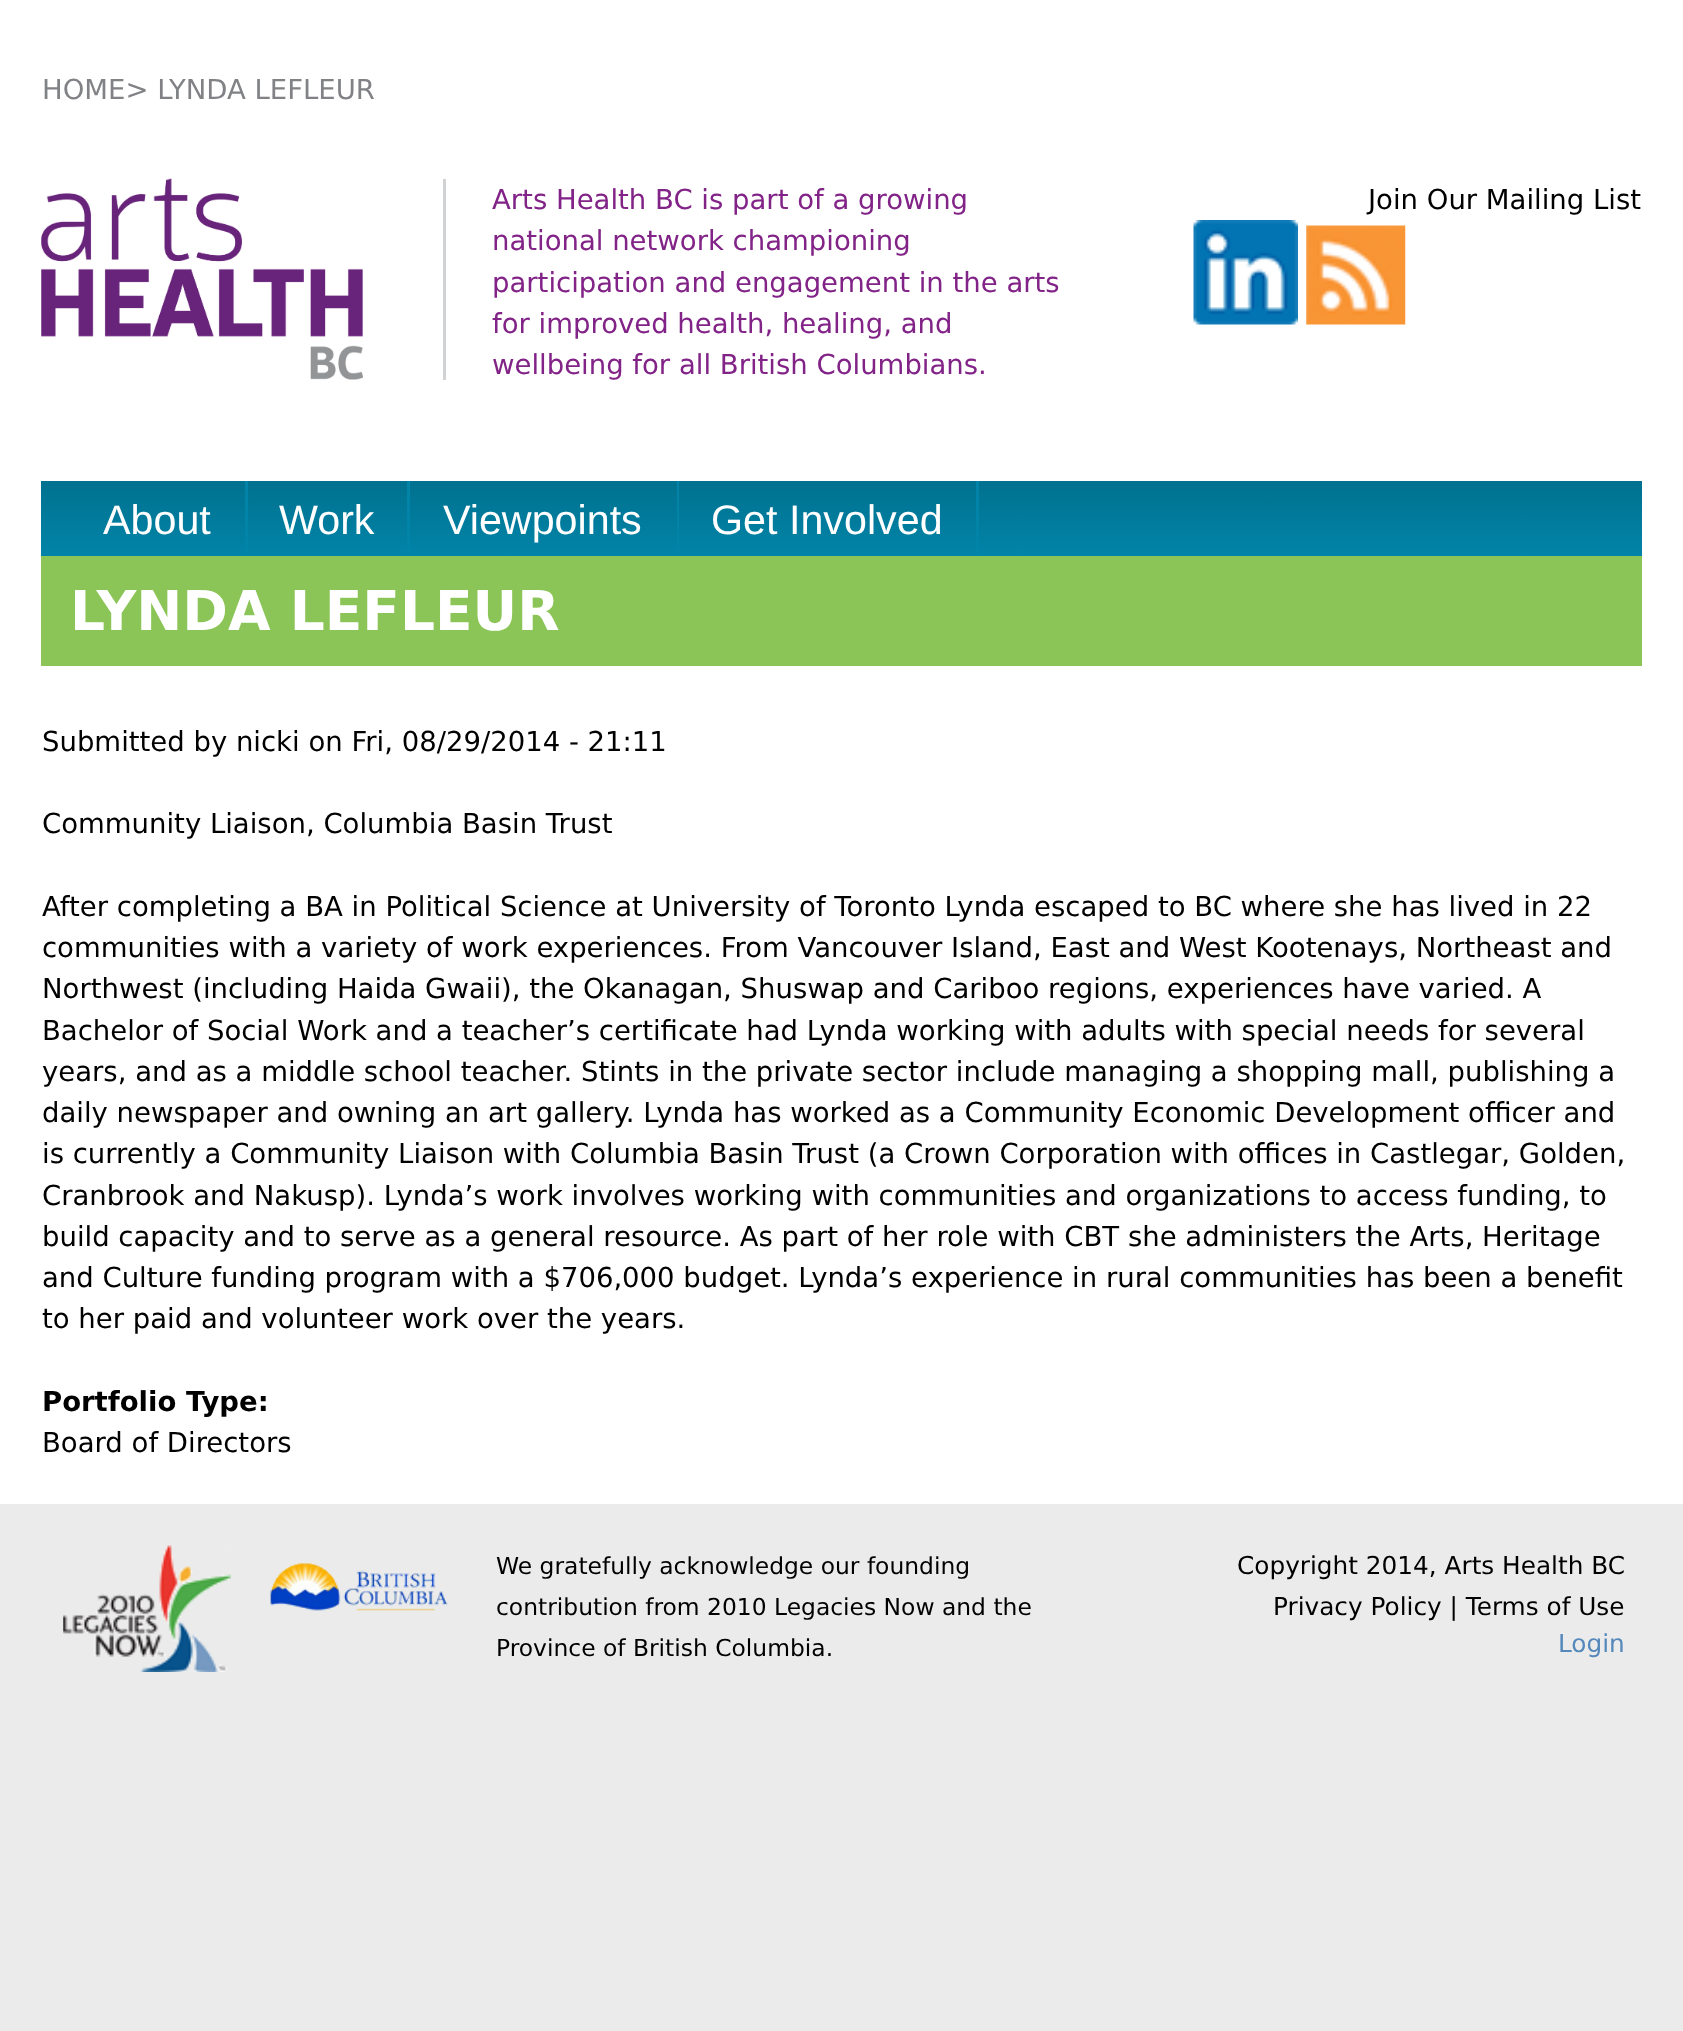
<svg xmlns="http://www.w3.org/2000/svg" xmlns:xlink="http://www.w3.org/1999/xlink" width="1683" height="2031" viewBox="0 0 1683 2031">
<style>
.cls-1{font:27.5px DejaVu Sans;fill:#818285}
.cls-2{font:27.5px DejaVu Sans;fill:#822387}
.cls-3{font:27.5px DejaVu Sans;fill:#000000}
.cls-4{font:41.25px Liberation Sans;fill:#ffffff}
.cls-5{font:bold 55px DejaVu Sans;fill:#ffffff}
.cls-6{font:bold 27.5px DejaVu Sans;fill:#000000}
.cls-7{font:23.4px DejaVu Sans;fill:#000000}
.cls-8{font:24.75px DejaVu Sans;fill:#000000}
.cls-9{font:24.75px DejaVu Sans;fill:#5588bb}
</style>
<defs>
<linearGradient id="g1" gradientUnits="userSpaceOnUse" x1="842" y1="481" x2="842" y2="556"><stop offset="0" stop-color="#00718f"/><stop offset="1" stop-color="#0284a8"/></linearGradient>
</defs>
<rect width="100%" height="100%" fill="#ebebeb"/>
<rect fill="#ffffff" x="0" y="0" width="1683" height="1504"/>
<rect fill="#d1d2d4" x="443" y="179" width="3" height="201"/>
<image xlink:href="image0.png" x="41" y="178" width="322" height="202"/>
<image xlink:href="image1.png" x="1193" y="220" width="105" height="105"/>
<image xlink:href="image2.png" x="1306" y="225" width="100" height="100"/>
<rect fill="url(#g1)" x="41" y="481" width="1601" height="75"/>
<rect fill="#0284a8" x="245" y="481" width="3" height="75"/>
<rect fill="#0284a8" x="407" y="481" width="3" height="75"/>
<rect fill="#0284a8" x="677" y="481" width="2" height="75"/>
<rect fill="#0284a8" x="976" y="481" width="3" height="75"/>
<rect fill="#8bc557" x="41" y="556" width="1601" height="110"/>
<image xlink:href="image3.png" x="63" y="1545" width="168" height="127"/>
<image xlink:href="image4.png" x="270" y="1563" width="178" height="48"/>
<text class="cls-1" x="42" y="99">HOME&gt; LYNDA LEFLEUR</text>
<text class="cls-2"><tspan x="492" y="209">Arts Health BC is part of a growing</tspan><tspan x="492" y="250">national network championing</tspan><tspan x="492" y="292">participation and engagement in the arts</tspan><tspan x="492" y="333">for improved health, healing, and</tspan><tspan x="492" y="374">wellbeing for all British Columbians.</tspan></text>
<text class="cls-3" x="1368" y="209">Join Our Mailing List</text>
<text class="cls-4" x="103" y="534">About</text>
<text class="cls-4" x="279" y="534">Work</text>
<text class="cls-4" x="443" y="534">Viewpoints</text>
<text class="cls-4" x="711" y="534">Get Involved</text>
<text class="cls-5" x="70" y="630">LYNDA LEFLEUR</text>
<text class="cls-3" x="42" y="751">Submitted by nicki on Fri, 08/29/2014 - 21:11</text>
<text class="cls-3" x="42" y="833">Community Liaison, Columbia Basin Trust</text>
<text class="cls-3"><tspan x="42" y="916">After completing a BA in Political Science at University of Toronto Lynda escaped to BC where she has lived in 22</tspan><tspan x="42" y="957">communities with a variety of work experiences. From Vancouver Island, East and West Kootenays, Northeast and</tspan><tspan x="42" y="998">Northwest (including Haida Gwaii), the Okanagan, Shuswap and Cariboo regions, experiences have varied. A</tspan><tspan x="42" y="1040">Bachelor of Social Work and a teacher’s certificate had Lynda working with adults with special needs for several</tspan><tspan x="42" y="1081">years, and as a middle school teacher. Stints in the private sector include managing a shopping mall, publishing a</tspan><tspan x="42" y="1122">daily newspaper and owning an art gallery. Lynda has worked as a Community Economic Development officer and</tspan><tspan x="42" y="1163">is currently a Community Liaison with Columbia Basin Trust (a Crown Corporation with offices in Castlegar, Golden,</tspan><tspan x="42" y="1205">Cranbrook and Nakusp). Lynda’s work involves working with communities and organizations to access funding, to</tspan><tspan x="42" y="1246">build capacity and to serve as a general resource. As part of her role with CBT she administers the Arts, Heritage</tspan><tspan x="42" y="1287">and Culture funding program with a $706,000 budget. Lynda’s experience in rural communities has been a benefit</tspan><tspan x="42" y="1328">to her paid and volunteer work over the years.</tspan></text>
<text class="cls-6" x="42" y="1411">Portfolio Type:</text>
<text class="cls-3" x="42" y="1452">Board of Directors</text>
<text class="cls-7"><tspan x="496" y="1574">We gratefully acknowledge our founding</tspan><tspan x="496" y="1615">contribution from 2010 Legacies Now and the</tspan><tspan x="496" y="1656">Province of British Columbia.</tspan></text>
<text class="cls-8" x="1237" y="1574">Copyright 2014, Arts Health BC</text>
<text class="cls-8" x="1273" y="1615">Privacy Policy | Terms of Use</text>
<text class="cls-9" x="1558" y="1652">Login</text>
</svg>
